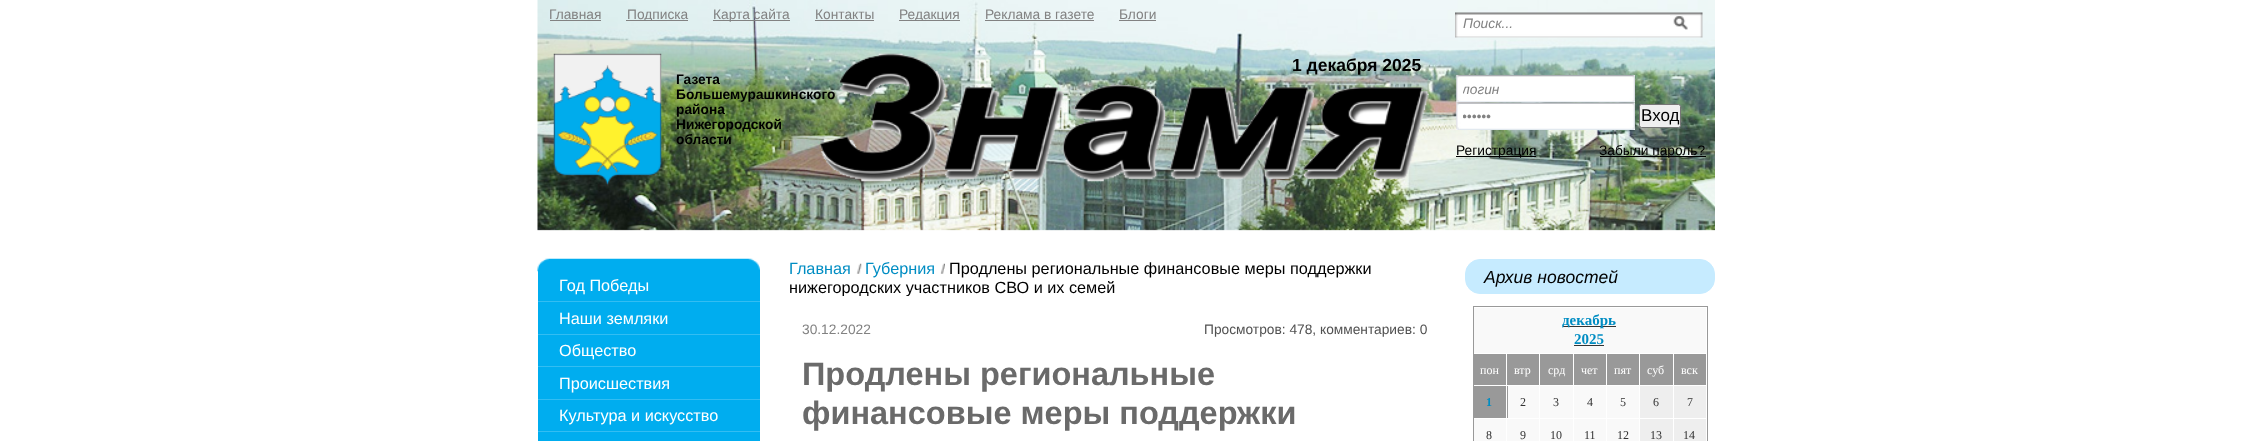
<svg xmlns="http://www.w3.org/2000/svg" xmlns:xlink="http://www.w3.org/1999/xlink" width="2251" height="441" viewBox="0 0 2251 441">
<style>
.cls-1{font:13.75px Liberation Sans;fill:#828282}
.cls-2{font:italic 13.75px Liberation Sans;fill:#828282}
.cls-3{font:bold 17.5px Liberation Sans;fill:#000000}
.cls-4{font:bold 13.75px Liberation Sans;fill:#000000}
.cls-5{font:17px Liberation Sans;fill:#000000}
.cls-6{font:13.75px Liberation Sans;fill:#000000}
.cls-7{font:16.25px Liberation Sans;fill:#ffffff}
.cls-8{font:16.25px Liberation Sans;fill:#008dc3}
.cls-9{font:16.25px Liberation Sans;fill:#000000}
.cls-10{font:13.75px Liberation Sans;fill:#515151}
.cls-11{font:bold 32.5px Liberation Sans;fill:#6a6a6a}
.cls-12{font:italic 17.5px Liberation Sans;fill:#000000}
.cls-13{font:bold 15px Liberation Serif;fill:#008dc3}
.cls-14{font:12px Liberation Serif;fill:#ffffff}
.cls-15{font:bold 12px Liberation Serif;fill:#008dc3}
.cls-16{font:12px Liberation Serif;fill:#333333}
</style>
<defs>
<clipPath id="clip1"><rect x="550" y="6" width="938" height="15"/></clipPath>
<clipPath id="clip2"><rect x="1463" y="75" width="172" height="28"/></clipPath>
<clipPath id="clip3"><rect x="1463" y="103" width="172" height="27"/></clipPath>
<clipPath id="clip4"><rect x="790" y="259" width="625" height="37"/></clipPath>
</defs>
<rect width="100%" height="100%" fill="#ffffff"/>
<image xlink:href="image0.png" x="537" y="0" width="1178" height="231"/>
<rect fill="#828282" x="550" y="20" width="51" height="1"/>
<rect fill="#828282" x="626" y="20" width="62" height="1"/>
<rect fill="#828282" x="713" y="20" width="77" height="1"/>
<rect fill="#828282" x="815" y="20" width="59" height="1"/>
<rect fill="#828282" x="899" y="20" width="61" height="1"/>
<rect fill="#828282" x="985" y="20" width="109" height="1"/>
<rect fill="#828282" x="1119" y="20" width="37" height="1"/>
<image xlink:href="image1.png" x="1455" y="12" width="248" height="26"/>
<rect fill="#ffffff" x="1458" y="15" width="212" height="1"/>
<image xlink:href="image2.png" x="1673" y="16" width="15" height="14"/>
<image xlink:href="image3.png" x="553" y="53" width="109" height="133"/>
<image xlink:href="image4.png" x="820" y="53" width="609" height="129"/>
<image xlink:href="image5.png" x="1456" y="75" width="179" height="28"/>
<image xlink:href="image6.png" x="1456" y="102" width="179" height="28"/>
<rect fill="#efefef" stroke="#767676" x="1639.5" y="104.5" width="41" height="23" rx="2"/>
<rect fill="#000000" x="1456" y="156" width="80" height="1"/>
<rect fill="#000000" x="1600" y="156" width="106" height="1"/>
<image xlink:href="image7.png" x="537" y="258" width="223" height="14"/>
<rect fill="#00adef" x="538" y="270" width="222" height="64"/>
<rect fill="#33bdf2" x="538" y="301" width="222" height="1"/>
<rect fill="#33bdf2" x="538" y="334" width="222" height="1"/>
<rect fill="#00adef" x="538" y="335" width="222" height="64"/>
<rect fill="#33bdf2" x="538" y="366" width="222" height="1"/>
<rect fill="#33bdf2" x="538" y="399" width="222" height="1"/>
<rect fill="#00adef" x="538" y="400" width="222" height="41"/>
<rect fill="#33bdf2" x="538" y="431" width="222" height="1"/>
<image xlink:href="image8.png" x="856" y="263" width="6" height="11"/>
<image xlink:href="image9.png" x="940" y="263" width="5" height="11"/>
<rect fill="#c6ebff" stroke="#c6ebff" x="1465.5" y="259.5" width="249" height="34" rx="14.5"/>
<rect fill="none" stroke="#999999" x="1473.5" y="306.5" width="234" height="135"/>
<rect fill="#f9f9f9" x="1474" y="308" width="232" height="45"/>
<rect fill="#333333" x="1563" y="326" width="53" height="1"/>
<rect fill="#333333" x="1574" y="345" width="30" height="1"/>
<rect fill="#999999" x="1474" y="354" width="65" height="31"/>
<rect fill="#ffffff" x="1506" y="353" width="1" height="32"/>
<rect fill="#999999" x="1540" y="354" width="33" height="31"/>
<rect fill="#999999" x="1574" y="354" width="65" height="31"/>
<rect fill="#ffffff" x="1606" y="353" width="1" height="32"/>
<rect fill="#999999" x="1640" y="354" width="33" height="31"/>
<rect fill="#999999" x="1674" y="354" width="32" height="31"/>
<rect fill="#999999" x="1474" y="386" width="34" height="32"/>
<rect fill="#ffffff" x="1506" y="385" width="1" height="33"/>
<rect fill="#f9f9f9" x="1508" y="386" width="31" height="32"/>
<rect fill="#f9f9f9" x="1540" y="386" width="33" height="32"/>
<rect fill="#f9f9f9" x="1574" y="386" width="65" height="32"/>
<rect fill="#ffffff" x="1606" y="385" width="1" height="33"/>
<rect fill="#eeeeee" x="1640" y="386" width="33" height="32"/>
<rect fill="#eeeeee" x="1674" y="386" width="32" height="32"/>
<rect fill="#f9f9f9" x="1474" y="419" width="65" height="22"/>
<rect fill="#ffffff" x="1506" y="418" width="1" height="23"/>
<rect fill="#f9f9f9" x="1540" y="419" width="33" height="22"/>
<rect fill="#f9f9f9" x="1574" y="419" width="65" height="22"/>
<rect fill="#ffffff" x="1606" y="418" width="1" height="23"/>
<rect fill="#eeeeee" x="1640" y="419" width="33" height="22"/>
<rect fill="#eeeeee" x="1674" y="419" width="32" height="22"/>
<text class="cls-1" x="549" y="19">Главная</text>
<g clip-path="url(#clip1)">
<text class="cls-1" x="627" y="19">Подписка</text>
</g>
<text class="cls-1" x="713" y="19">Карта сайта</text>
<text class="cls-1" x="815" y="19">Контакты</text>
<g clip-path="url(#clip1)">
<text class="cls-1" x="899" y="19">Редакция</text>
</g>
<text class="cls-1" x="985" y="19">Реклама в газете</text>
<text class="cls-1" x="1119" y="19">Блоги</text>
<text class="cls-2" x="1463" y="28">Поиск...</text>
<text class="cls-3" x="1292" y="71">1 декабря 2025</text>
<text class="cls-4"><tspan x="676" y="84">Газета</tspan><tspan x="676" y="99">Большемурашкинского</tspan><tspan x="676" y="114">района</tspan><tspan x="676" y="129">Нижегородской</tspan><tspan x="676" y="144">области</tspan></text>
<g clip-path="url(#clip2)">
<text class="cls-2" x="1462" y="94">логин</text>
</g>
<g clip-path="url(#clip3)">
<text class="cls-2" x="1462" y="121">••••••</text>
</g>
<text class="cls-5" x="1641" y="121">Вход</text>
<text class="cls-6" x="1456" y="155">Регистрация</text>
<text class="cls-6" x="1599" y="155">Забыли пароль?</text>
<text class="cls-7" x="559" y="291">Год Победы</text>
<text class="cls-7"><tspan x="559" y="324">Наши земляки</tspan><tspan x="559" y="356">Общество</tspan></text>
<text class="cls-7"><tspan x="559" y="389">Происшествия</tspan><tspan x="559" y="421">Культура и искусство</tspan></text>
<text class="cls-8" x="789" y="274">Главная</text>
<text class="cls-8" x="865" y="274">Губерния</text>
<text class="cls-9" x="949" y="274">Продлены региональные финансовые меры поддержки</text>
<g clip-path="url(#clip4)">
<text class="cls-9" x="789" y="293">нижегородских участников СВО и их семей</text>
</g>
<text class="cls-1" x="802" y="334">30.12.2022</text>
<text class="cls-10" x="1204" y="334">Просмотров: 478, комментариев: 0</text>
<text class="cls-11"><tspan x="802" y="385">Продлены региональные</tspan><tspan x="802" y="424">финансовые меры поддержки</tspan></text>
<text class="cls-12" x="1484" y="283">Архив новостей</text>
<text class="cls-13" x="1562" y="325">декабрь</text>
<text class="cls-13" x="1574" y="344">2025</text>
<text class="cls-14" x="1480" y="374">пон</text>
<text class="cls-14" x="1514" y="374">втр</text>
<text class="cls-14" x="1548" y="374">срд</text>
<text class="cls-14" x="1581" y="374">чет</text>
<text class="cls-14" x="1614" y="374">пят</text>
<text class="cls-14" x="1647" y="374">суб</text>
<text class="cls-14" x="1681" y="374">вск</text>
<text class="cls-15" x="1486" y="406">1</text>
<text class="cls-16" x="1520" y="406">2</text>
<text class="cls-16" x="1553" y="406">3</text>
<text class="cls-16" x="1587" y="406">4</text>
<text class="cls-16" x="1620" y="406">5</text>
<text class="cls-16" x="1653" y="406">6</text>
<text class="cls-16" x="1687" y="406">7</text>
<text class="cls-16" x="1486" y="439">8</text>
<text class="cls-16" x="1520" y="439">9</text>
<text class="cls-16" x="1550" y="439">10</text>
<text class="cls-16" x="1584" y="439">11</text>
<text class="cls-16" x="1617" y="439">12</text>
<text class="cls-16" x="1650" y="439">13</text>
<text class="cls-16" x="1683" y="439">14</text>
</svg>
